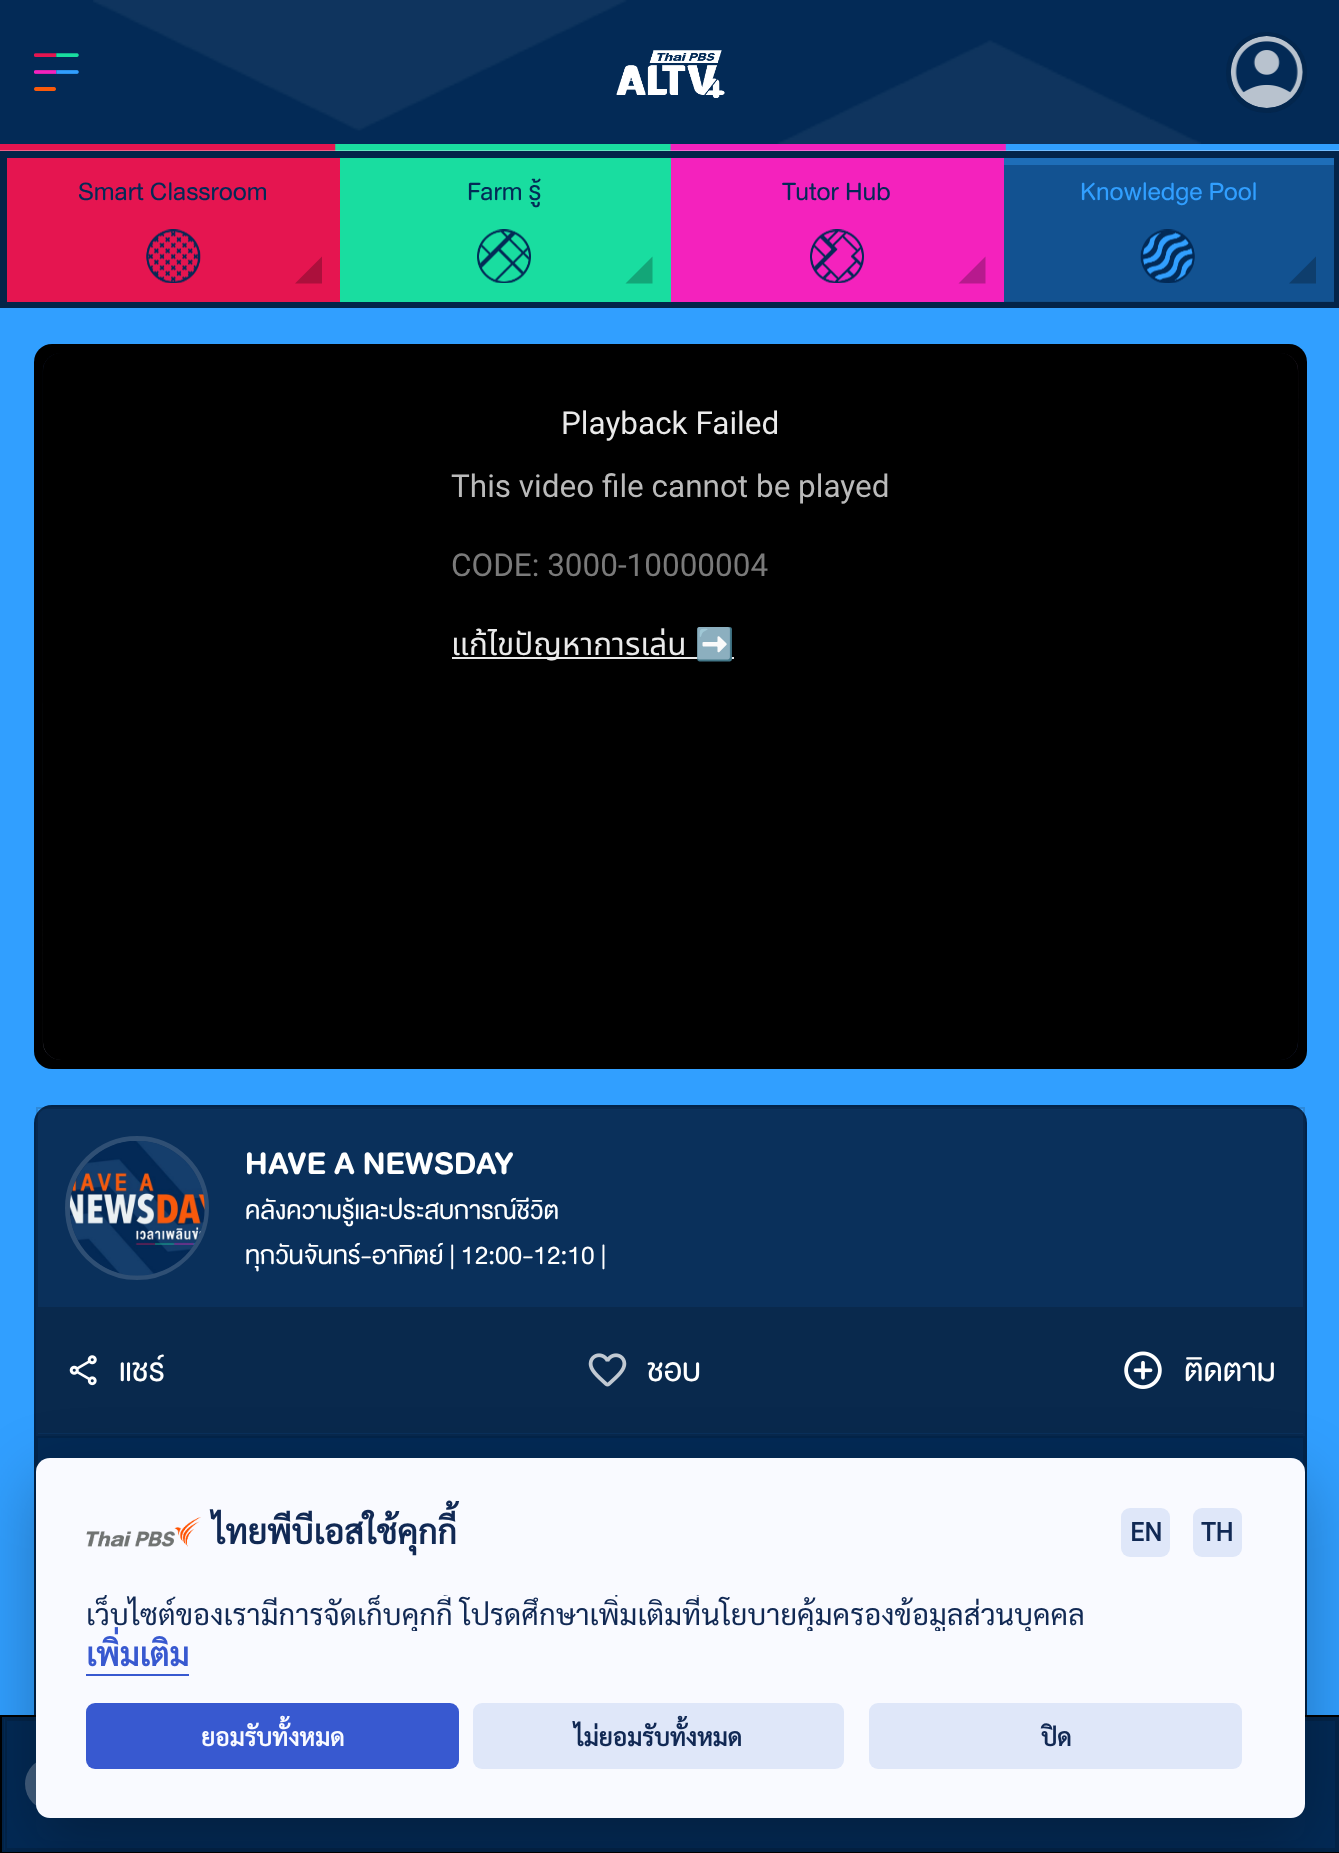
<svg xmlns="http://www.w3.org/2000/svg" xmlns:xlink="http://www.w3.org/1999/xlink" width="1339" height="1853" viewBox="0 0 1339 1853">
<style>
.cls-1{font:36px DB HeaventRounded;fill:#032a56}
.cls-2{font:36px DB HeaventRounded;fill:#319fff}
.cls-3{font:31.5px Roboto;fill:#eaeaea}
.cls-4{font:31.5px Roboto;fill:#bababa}
.cls-5{font:31.5px Roboto;fill:#7a7a7a}
.cls-6{font:31.5px Noto Sans Thai;fill:#eaeaea}
.cls-7{font:31.5px Noto Color Emoji;fill:#eaeaea}
.cls-8{font:bold 45px DB HeaventRounded;fill:#ffffff}
.cls-9{font:36px DB HeaventRounded;fill:#ffffff}
.cls-10{font:45px DB HeaventRounded;fill:#ffffff}
.cls-11{font:bold 34px Sarabun;fill:#112954}
.cls-12{font:bold 26px Sarabun;fill:#112954}
.cls-13{font:29.15px Sarabun;fill:#112954}
.cls-14{font:bold 32.5px Sarabun;fill:#3859d0}
.cls-15{font:bold 24.5px Sarabun;fill:#f9faff}
.cls-16{font:bold 24.5px Sarabun;fill:#112954}
</style>
<defs>
<linearGradient id="g1" gradientUnits="userSpaceOnUse" x1="671" y1="353" x2="671" y2="1060"><stop offset="0" stop-color="#000000" stop-opacity="0.8"/><stop offset="1" stop-color="#000000" stop-opacity="0"/></linearGradient>
<clipPath id="clip1"><rect x="86" y="1595" width="1170" height="36"/></clipPath>
</defs>
<rect width="100%" height="100%" fill="#ffffff"/>
<rect fill="#032a56" x="0" y="0" width="1339" height="144"/>
<image xlink:href="image0.png" x="93" y="0" width="1108" height="144"/>
<image xlink:href="image1.png" x="34" y="53" width="45" height="38"/>
<image xlink:href="image2.png" x="616" y="50" width="109" height="48"/>
<circle fill="none" stroke="#03264d" stroke-width="5" cx="1266.5" cy="72.5" r="38"/>
<image xlink:href="image3.png" x="1230" y="36" width="73" height="72"/>
<image xlink:href="image4.png" x="0" y="144" width="1339" height="7"/>
<rect fill="#032a56" x="1004" y="165" width="330" height="136"/>
<rect fill="none" stroke="#032449" stroke-width="7" x="3.5" y="154.5" width="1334" height="150"/>
<rect fill="#e51550" x="7" y="158" width="333" height="144"/>
<image xlink:href="image5.png" x="146" y="229" width="55" height="54"/>
<path fill="#ac103c" d="M322 283.5H295L322 256.5Z"/>
<rect fill="#19dda0" x="340" y="158" width="331" height="144"/>
<image xlink:href="image6.png" x="477" y="229" width="54" height="54"/>
<path fill="#13a678" d="M652.5 283.5H625.5L652.5 256.5Z"/>
<rect fill="#f422bd" x="671" y="158" width="333" height="144"/>
<image xlink:href="image7.png" x="810" y="229" width="54" height="54"/>
<path fill="#b71a8e" d="M985.5 283.5H958.5L985.5 256.5Z"/>
<rect fill="#319fff" fill-opacity="0.35" x="1004" y="165" width="330" height="137"/>
<rect fill="#1e6eb8" x="1004" y="158" width="330" height="7"/>
<image xlink:href="image8.png" x="1140" y="229" width="55" height="54"/>
<path fill="#0e3e6d" d="M1316 283.5H1289L1316 256.5Z"/>
<rect fill="#319fff" x="0" y="308" width="1339" height="1407"/>
<rect fill="#000000" x="34" y="344" width="1273" height="725" rx="18"/>
<image xlink:href="image9.png" x="42" y="353" width="1257" height="707"/>
<rect fill="#000000" x="43" y="353" width="1255" height="707" rx="18"/>
<rect fill="url(#g1)" x="43" y="353" width="1255" height="707" rx="18"/>
<rect fill="#eaeaea" x="452" y="657" width="282" height="2"/>
<rect fill="#032a56" x="34" y="1105" width="1273" height="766" rx="18"/>
<rect fill="none" stroke="#000000" stroke-opacity="0.15" stroke-width="2" x="35" y="1106" width="1271" height="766" rx="17"/>
<rect fill="#ffffff" fill-opacity="0.03" x="36" y="1107" width="1269" height="329"/>
<rect fill="none" stroke="#000000" stroke-opacity="0.15" stroke-width="2" x="37" y="1108" width="1267" height="327"/>
<circle fill="none" stroke="#2f4f74" stroke-width="5" cx="137" cy="1208" r="69.5"/>
<image xlink:href="image10.png" x="69" y="1141" width="136" height="135"/>
<rect fill="#09294d" x="38" y="1307" width="1265" height="126"/>
<image xlink:href="image11.png" x="69" y="1355" width="28" height="31"/>
<image xlink:href="image12.png" x="588" y="1353" width="39" height="34"/>
<image xlink:href="image13.png" x="1124" y="1351" width="38" height="38"/>
<rect fill="none" stroke="#032449" stroke-width="2" x="37" y="1437" width="1267" height="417"/>
<rect fill="#000000" x="0" y="1715" width="1339" height="138"/>
<rect fill="#032a56" x="4" y="1719" width="1331" height="131"/>
<rect fill="none" stroke="#032449" stroke-width="2" x="3" y="1718" width="1335" height="133"/>
<rect fill="none" stroke="#032449" stroke-width="2" x="6" y="1720" width="1330" height="129"/>
<circle fill="#425f80" cx="52" cy="1784" r="27"/>
<rect fill="#020203" fill-opacity="0.28" filter="blur(34px)" x="36" y="1481" width="1269" height="360" rx="14"/>
<rect fill="#f9faff" x="36" y="1458" width="1269" height="360" rx="14"/>
<image xlink:href="image14.png" x="86" y="1517" width="115" height="30"/>
<rect fill="#dfe7f9" x="1121" y="1508" width="49" height="49" rx="9"/>
<rect fill="#dfe7f9" x="1193" y="1508" width="49" height="49" rx="9"/>
<rect fill="#3859d0" x="86" y="1674" width="103" height="2"/>
<rect fill="#3859d0" x="86" y="1703" width="373" height="66" rx="9"/>
<rect fill="#dfe7f9" x="473" y="1703" width="371" height="66" rx="9"/>
<rect fill="#dfe7f9" x="869" y="1703" width="373" height="66" rx="9"/>
<text class="cls-1" x="78" y="200">Smart Classroom</text>
<text class="cls-1" x="467" y="200">Farm รู้</text>
<text class="cls-1" x="782" y="200">Tutor Hub</text>
<text class="cls-2" x="1080" y="200">Knowledge Pool</text>
<text class="cls-3" x="561" y="434">Playback Failed</text>
<text class="cls-4" x="451" y="497">This video file cannot be played</text>
<text class="cls-5" x="451" y="576">CODE: 3000-10000004</text>
<text class="cls-6" x="451" y="655">แก้ไขปัญหาการเล่น</text>
<text class="cls-7" x="695" y="655">➡️</text>
<text class="cls-8" x="245" y="1174">HAVE A NEWSDAY</text>
<text class="cls-9"><tspan x="245" y="1219">คลังความรู้และประสบการณ์ชีวิต</tspan><tspan x="245" y="1264">ทุกวันจันทร์-อาทิตย์ | 12:00-12:10 |</tspan></text>
<text class="cls-10" x="119" y="1381">แชร์</text>
<text class="cls-10" x="647" y="1381">ชอบ</text>
<text class="cls-10" x="1184" y="1381">ติดตาม</text>
<text class="cls-11" x="212" y="1544">ไทยพีบีเอสใช้คุกกี้</text>
<text class="cls-12" x="1130" y="1541">EN</text>
<text class="cls-12" x="1201" y="1541">TH</text>
<g clip-path="url(#clip1)">
<text class="cls-13" x="86" y="1625">เว็บไซต์ของเรามีการจัดเก็บคุกกี้ โปรดศึกษาเพิ่มเติมที่นโยบายคุ้มครองข้อมูลส่วนบุคคล</text>
</g>
<text class="cls-14" x="86" y="1666">เพิ่มเติม</text>
<text class="cls-15" x="201" y="1746">ยอมรับทั้งหมด</text>
<text class="cls-16" x="574" y="1746">ไม่ยอมรับทั้งหมด</text>
<text class="cls-16" x="1041" y="1746">ปิด</text>
</svg>
